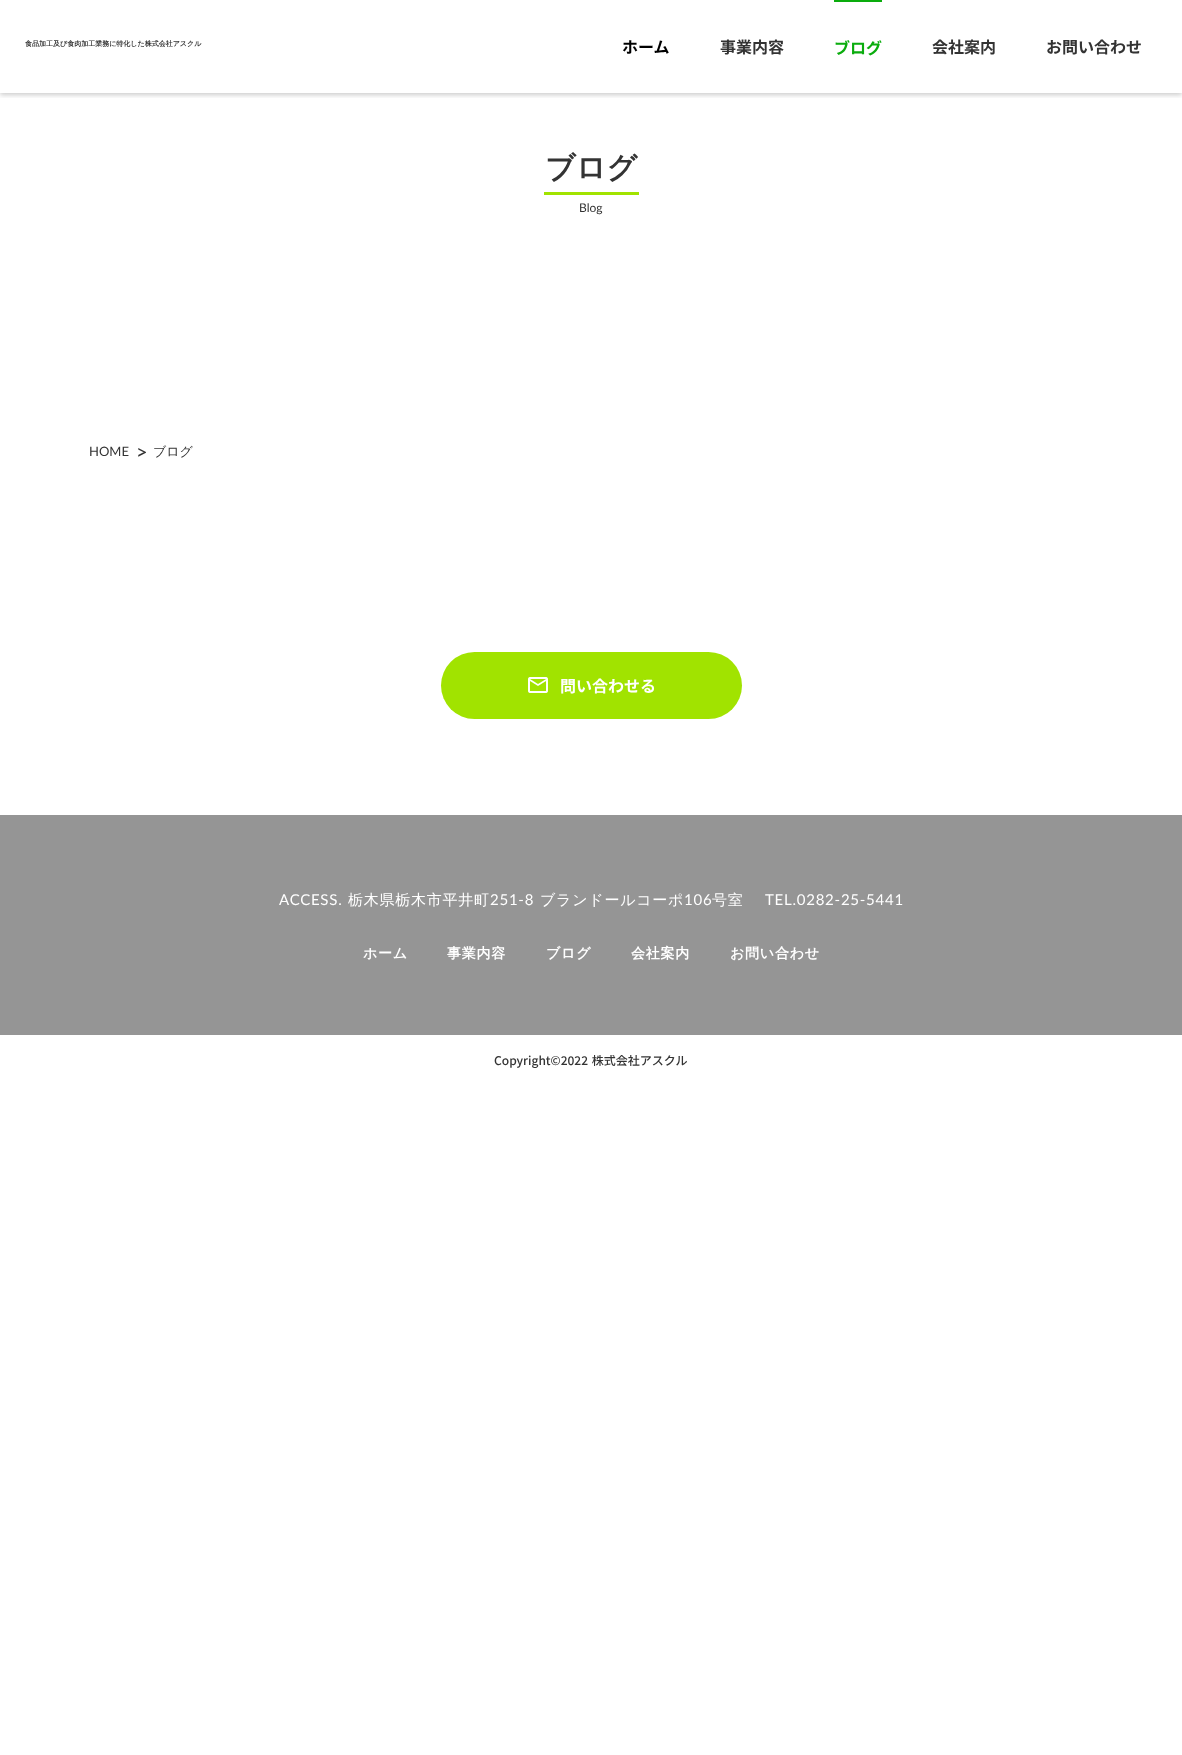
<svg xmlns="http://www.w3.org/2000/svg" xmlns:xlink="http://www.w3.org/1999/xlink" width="1182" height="1755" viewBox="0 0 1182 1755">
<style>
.cls-1{font:bold 7px WenQuanYi Zen Hei;fill:#333333}
.cls-2{font:bold 16px Noto Sans JP;fill:#000000}
.cls-3{font:bold 16px Noto Sans JP;fill:#333333}
.cls-4{font:bold 16px Noto Sans JP;fill:#0aac0d}
.cls-5{font:bold 30px WenQuanYi Zen Hei;fill:#333333}
.cls-6{font:12px Lato;fill:#333333}
.cls-7{font:13px Lato;fill:#333333}
.cls-8{font:20px Lato;fill:#333333}
.cls-9{font:500 13px WenQuanYi Zen Hei;fill:#333333}
.cls-10{font:bold 16px Noto Sans JP;fill:#ffffff}
.cls-11{font:15px Lato;letter-spacing:0.75px;fill:#ffffff}
.cls-12{font:500 15px WenQuanYi Zen Hei;letter-spacing:0.75px;fill:#ffffff}
.cls-13{font:bold 14px WenQuanYi Zen Hei;letter-spacing:0.75px;fill:#ffffff}
.cls-14{font:500 12px Noto Sans JP;fill:#333333}
</style>
<defs>
<clipPath id="clip1"><rect x="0" y="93" width="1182" height="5"/></clipPath>
</defs>
<rect width="100%" height="100%" fill="#ffffff"/>
<g clip-path="url(#clip1)">
<rect fill="#000000" fill-opacity="0.2" filter="blur(2.5px)" x="0" y="2" width="1182" height="93"/>
</g>
<rect fill="#0aac0d" x="834" y="0" width="48" height="2"/>
<rect fill="#a1e300" x="544" y="192" width="95" height="3"/>
<rect fill="#a1e300" x="441" y="652" width="301" height="67" rx="33.5"/>
<image xlink:href="image0.png" x="528" y="677" width="20" height="16"/>
<rect fill="#959595" x="0" y="815" width="1182" height="220"/>
<text class="cls-1" x="25" y="46">食品加工及び食肉加工業務に特化した株式会社アスクル</text>
<text class="cls-2" x="622" y="53">ホーム</text>
<text class="cls-3" x="720" y="53">事業内容</text>
<text class="cls-4" x="834" y="54">ブログ</text>
<text class="cls-3" x="932" y="53">会社案内</text>
<text class="cls-3" x="1046" y="53">お問い合わせ</text>
<text class="cls-5" x="545" y="178">ブログ</text>
<text class="cls-6" x="579" y="212">Blog</text>
<text class="cls-7" x="89" y="456">HOME</text>
<text class="cls-8" x="136" y="459">&gt;</text>
<text class="cls-9" x="153" y="456">ブログ</text>
<text class="cls-10" x="560" y="692">問い合わせる</text>
<text class="cls-11" x="279" y="905">ACCESS.</text>
<text class="cls-12" x="348" y="905">栃木県栃木市平井町</text>
<text class="cls-11" x="490" y="905">251-8</text>
<text class="cls-12" x="540" y="905">ブランドールコーポ</text>
<text class="cls-11" x="684" y="905">106</text>
<text class="cls-12" x="712" y="905">号室</text>
<text class="cls-11" x="765" y="905">TEL.0282-25-5441</text>
<text class="cls-13" x="363" y="958">ホーム</text>
<text class="cls-13" x="447" y="958">事業内容</text>
<text class="cls-13" x="546" y="958">ブログ</text>
<text class="cls-13" x="631" y="958">会社案内</text>
<text class="cls-13" x="730" y="958">お問い合わせ</text>
<text class="cls-14" x="494" y="1065" word-spacing="1">Copyright©2022 株式会社アスクル</text>
</svg>
